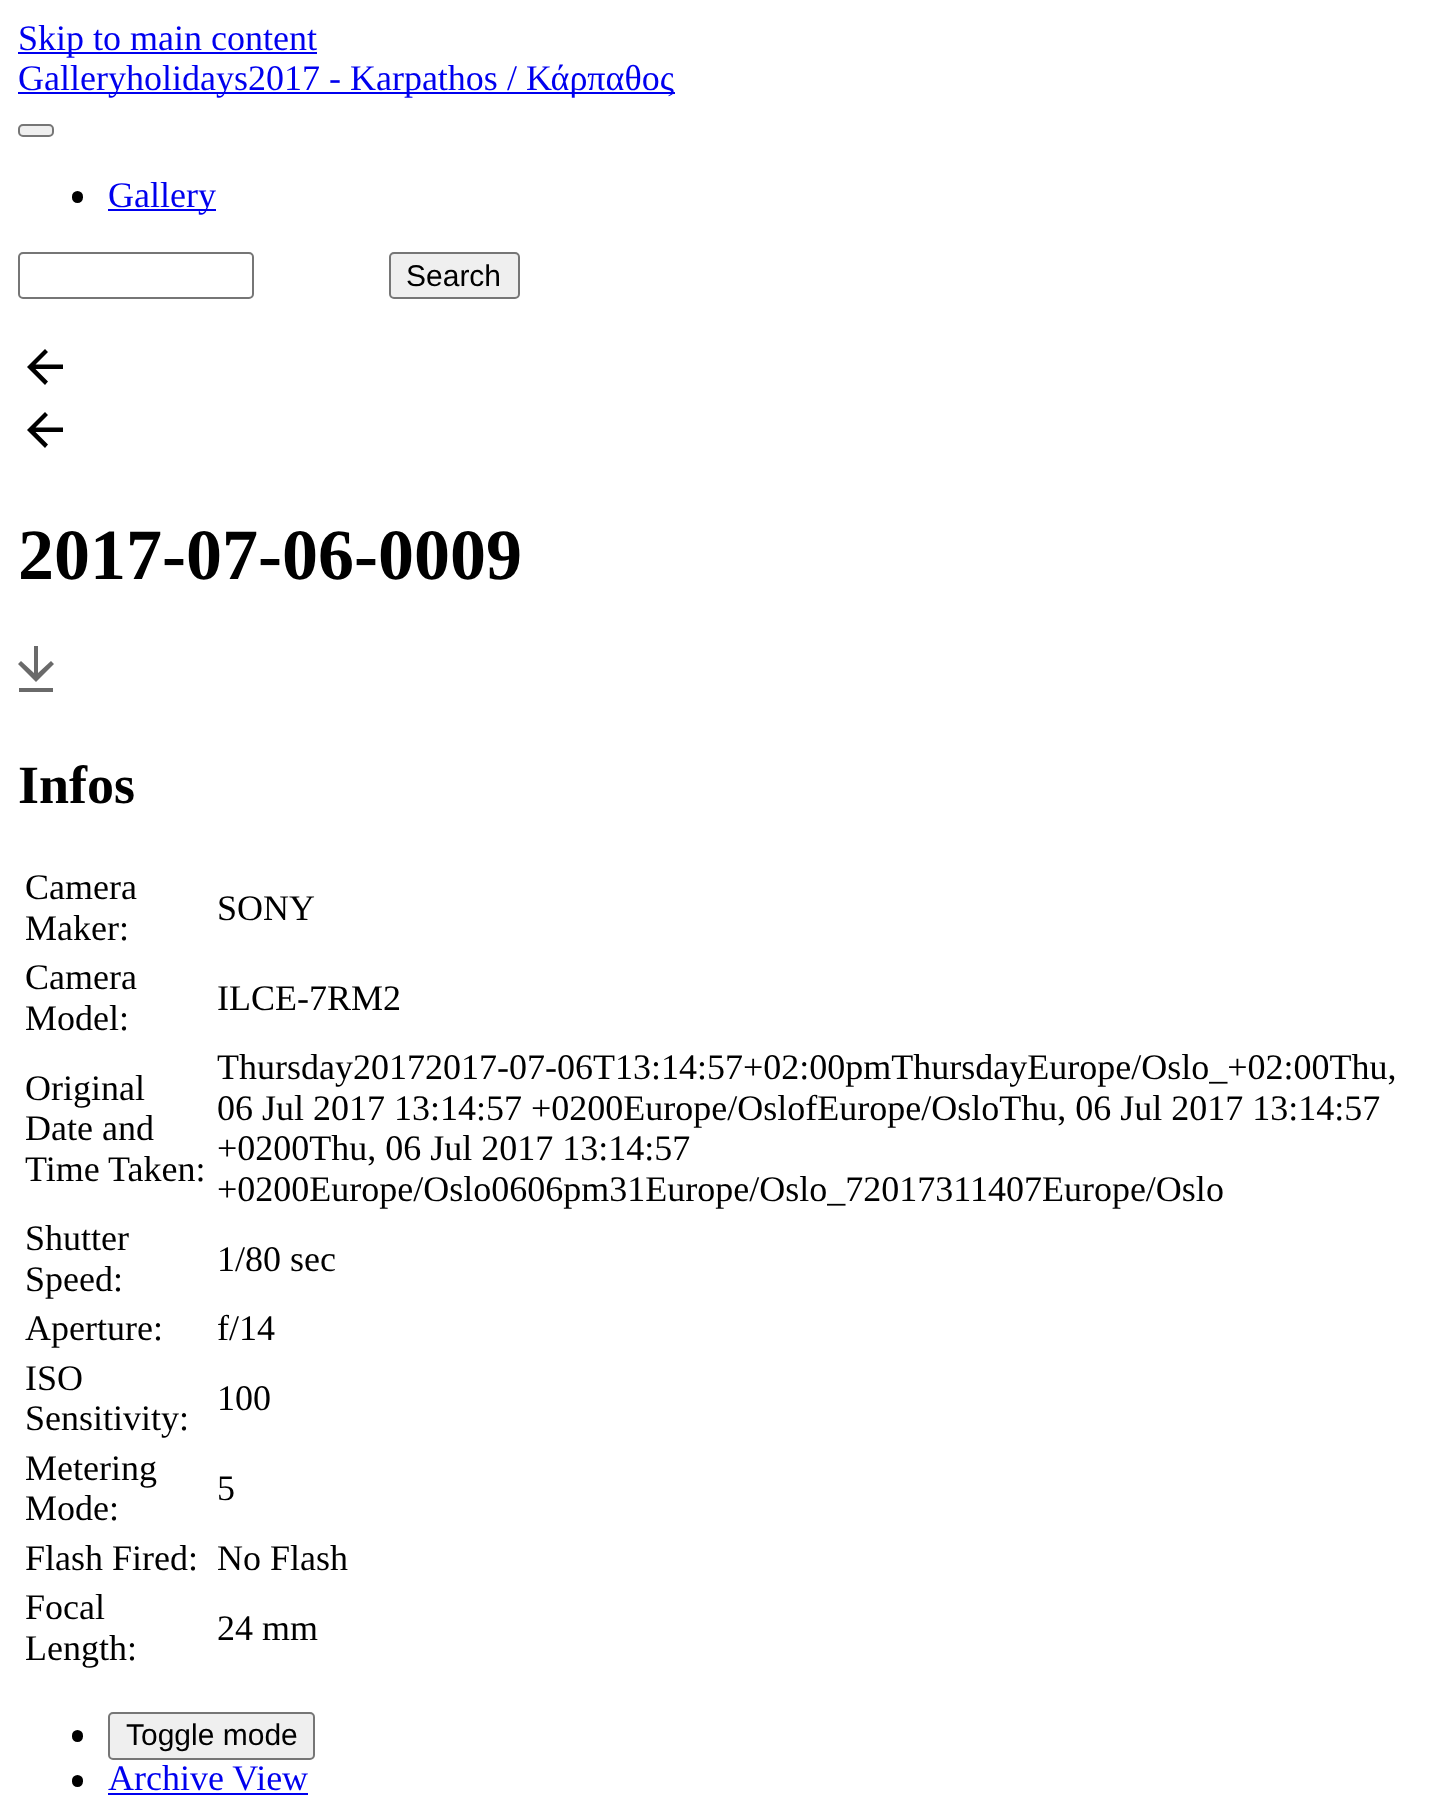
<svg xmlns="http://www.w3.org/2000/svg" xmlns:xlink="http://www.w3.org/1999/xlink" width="1442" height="1797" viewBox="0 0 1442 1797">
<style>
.cls-1{font:36px Liberation Serif;fill:#0000ee}
.cls-2{font:30px Liberation Sans;fill:#000000}
.cls-3{font:bold 72px Liberation Serif;fill:#000000}
.cls-4{font:bold 54px Liberation Serif;fill:#000000}
.cls-5{font:36px Liberation Serif;fill:#000000}
</style>
<rect width="100%" height="100%" fill="#ffffff"/>
<rect fill="#0000ee" x="18" y="52" width="299" height="2"/>
<rect fill="#0000ee" x="18" y="92" width="657" height="2"/>
<rect fill="#efefef" stroke="#767676" stroke-width="2" x="19" y="125" width="34" height="11" rx="4"/>
<rect fill="#000000" x="72" y="191" width="11" height="12" rx="5.5"/>
<rect fill="#0000ee" x="108" y="209" width="108" height="2"/>
<rect fill="none" stroke="#767676" stroke-width="2" x="19" y="253" width="234" height="45" rx="4"/>
<rect fill="#efefef" stroke="#767676" stroke-width="2" x="390" y="253" width="129" height="45" rx="4"/>
<path fill="#000000" d="M63 364.5H35.5L48 352L45 349L27 367L45 385L48 381.5L35.5 369H63Z"/>
<path fill="#000000" d="M63 427.5H35.5L48 415L45 412L27 430L45 448L48 444.5L35.5 432H63Z"/>
<path fill="#6a6a6a" d="M36 682L18 664L21 661L34 673V646H38V673L51 661L54 664ZM19 692H53V688H19Z"/>
<rect fill="#000000" x="72" y="1730" width="11" height="12" rx="5.5"/>
<rect fill="#efefef" stroke="#767676" stroke-width="2" x="109" y="1713" width="205" height="46" rx="4"/>
<rect fill="#000000" x="72" y="1775" width="11" height="12" rx="5.5"/>
<rect fill="#0000ee" x="108" y="1793" width="200" height="2"/>
<text class="cls-1"><tspan x="18" y="50">Skip to main content</tspan><tspan x="18" y="90">Galleryholidays2017 - Karpathos / Κάρπαθος</tspan></text>
<text class="cls-1" x="108" y="207">Gallery</text>
<text class="cls-2" x="406" y="286">Search</text>
<text class="cls-3" x="18" y="579">2017-07-06-0009</text>
<text class="cls-4" x="18" y="803">Infos</text>
<text class="cls-5"><tspan x="25" y="899">Camera</tspan><tspan x="25" y="940">Maker:</tspan></text>
<text class="cls-5" x="217" y="920">SONY</text>
<text class="cls-5"><tspan x="25" y="989">Camera</tspan><tspan x="25" y="1030">Model:</tspan></text>
<text class="cls-5" x="217" y="1010">ILCE-7RM2</text>
<text class="cls-5"><tspan x="25" y="1100">Original</tspan><tspan x="25" y="1140">Date and</tspan><tspan x="25" y="1181">Time Taken:</tspan></text>
<text class="cls-5"><tspan x="217" y="1079">Thursday20172017-07-06T13:14:57+02:00pmThursdayEurope/Oslo_+02:00Thu,</tspan><tspan x="217" y="1120">06 Jul 2017 13:14:57 +0200Europe/OslofEurope/OsloThu, 06 Jul 2017 13:14:57</tspan><tspan x="217" y="1160">+0200Thu, 06 Jul 2017 13:14:57</tspan><tspan x="217" y="1201">+0200Europe/Oslo0606pm31Europe/Oslo_72017311407Europe/Oslo</tspan></text>
<text class="cls-5"><tspan x="25" y="1250">Shutter</tspan><tspan x="25" y="1291">Speed:</tspan></text>
<text class="cls-5" x="217" y="1271">1/80 sec</text>
<text class="cls-5" x="25" y="1340">Aperture:</text>
<text class="cls-5" x="217" y="1340">f/14</text>
<text class="cls-5"><tspan x="25" y="1390">ISO</tspan><tspan x="25" y="1430">Sensitivity:</tspan></text>
<text class="cls-5" x="217" y="1410">100</text>
<text class="cls-5"><tspan x="25" y="1480">Metering</tspan><tspan x="25" y="1520">Mode:</tspan></text>
<text class="cls-5" x="217" y="1500">5</text>
<text class="cls-5" x="25" y="1570">Flash Fired:</text>
<text class="cls-5" x="217" y="1570">No Flash</text>
<text class="cls-5"><tspan x="25" y="1619">Focal</tspan><tspan x="25" y="1660">Length:</tspan></text>
<text class="cls-5" x="217" y="1640">24 mm</text>
<text class="cls-2" x="126" y="1745">Toggle mode</text>
<text class="cls-1" x="108" y="1790">Archive View</text>
</svg>
